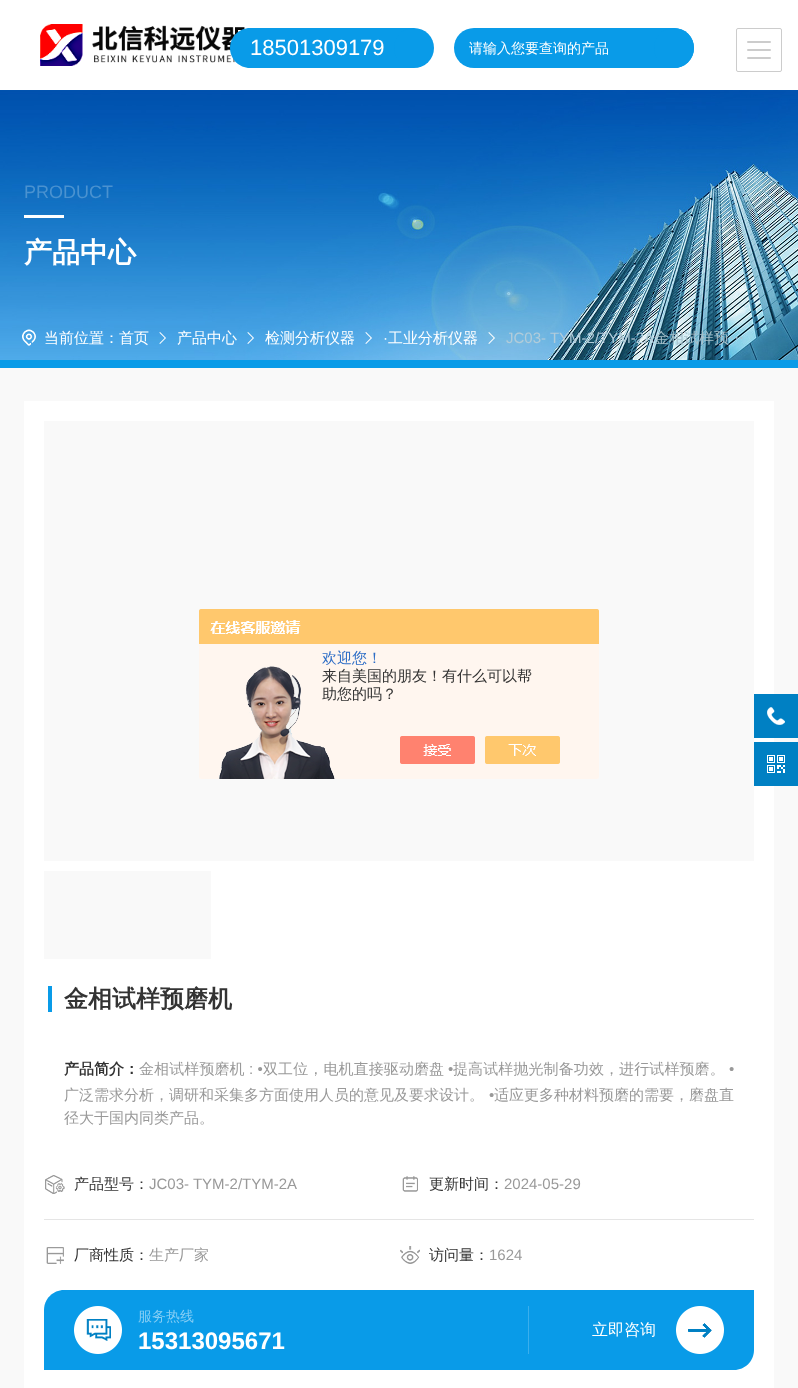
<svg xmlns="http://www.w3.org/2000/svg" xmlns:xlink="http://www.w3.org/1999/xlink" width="798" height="1388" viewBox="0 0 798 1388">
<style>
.cls-1{font:22px Liberation Sans;fill:#ffffff}
.cls-2{font:500 14px WenQuanYi Zen Hei;fill:#ffffff}
.cls-3{font:18px Liberation Sans;fill:#4a92d0}
.cls-4{font:bold 28px WenQuanYi Zen Hei;fill:#ffffff}
.cls-5{font:500 15px WenQuanYi Zen Hei;fill:#ffffff}
.cls-6{font:15px Liberation Sans;fill:#ffffff}
.cls-7{font:15px Liberation Sans;fill:#b2ccda}
.cls-8{font:500 15px WenQuanYi Zen Hei;fill:#a6c0cb}
.cls-9{font:500 15px WenQuanYi Zen Hei;fill:#2e6ec6}
.cls-10{font:500 15px WenQuanYi Zen Hei;fill:#333333}
.cls-11{font:bold 24px WenQuanYi Zen Hei;fill:#333333}
.cls-12{font:bold 15px WenQuanYi Zen Hei;fill:#333333}
.cls-13{font:500 15px WenQuanYi Zen Hei;letter-spacing:0.1px;fill:#999999}
.cls-14{font:15px Liberation Sans;letter-spacing:0.1px;fill:#999999}
.cls-15{font:500 15px WenQuanYi Zen Hei;fill:#999999}
.cls-16{font:15px Liberation Sans;fill:#999999}
.cls-17{font:500 14px WenQuanYi Zen Hei;fill:#84cdf4}
.cls-18{font:bold 24px Liberation Sans;fill:#ffffff}
.cls-19{font:500 16px WenQuanYi Zen Hei;fill:#ffffff}
</style>
<rect width="100%" height="100%" fill="#f9f9f9"/>
<rect fill="#ffffff" x="0" y="0" width="798" height="90"/>
<image xlink:href="image0.png" x="40" y="24" width="205" height="42"/>
<path fill="#099be8" d="M250 28H414V68H250C239 68 230 59 230 48C230 37 239 28 250 28Z"/>
<circle fill="#099be8" cx="414" cy="48" r="20"/>
<rect fill="#099be8" x="454" y="28" width="240" height="40" rx="20"/>
<circle fill="#099be8" cx="674" cy="48" r="20"/>
<rect fill="none" stroke="#cccccc" x="736.5" y="28.5" width="45" height="43" rx="1.5"/>
<rect fill="#cccccc" x="747" y="41" width="24" height="2" rx="1"/>
<rect fill="#cccccc" x="747" y="49" width="24" height="2" rx="1"/>
<rect fill="#cccccc" x="747" y="57" width="24" height="2" rx="1"/>
<image xlink:href="image1.png" x="0" y="90" width="798" height="270"/>
<rect fill="#ffffff" x="24" y="215" width="40" height="3"/>
<rect fill="#099be8" x="0" y="360" width="798" height="8"/>
<image xlink:href="image2.png" x="22" y="329" width="14" height="17"/>
<image xlink:href="image3.png" x="159" y="332" width="7" height="12"/>
<image xlink:href="image4.png" x="247" y="332" width="7" height="12"/>
<image xlink:href="image5.png" x="365" y="332" width="7" height="12"/>
<image xlink:href="image6.png" x="488" y="332" width="7" height="12"/>
<rect fill="#ffffff" x="24" y="401" width="750" height="987"/>
<rect fill="#f9f9f9" x="44" y="421" width="710" height="440"/>
<image xlink:href="image7.png" x="199" y="609" width="400" height="170"/>
<rect fill="#0080c3" x="754" y="694" width="44" height="44"/>
<image xlink:href="image8.png" x="767" y="707" width="18" height="18"/>
<rect fill="#0080c3" x="754" y="742" width="44" height="44"/>
<image xlink:href="image9.png" x="767" y="755" width="18" height="18"/>
<rect fill="#f9f9f9" x="44" y="871" width="167" height="88"/>
<rect fill="#099be8" x="48" y="986" width="4" height="26"/>
<rect fill="#e5e5e5" x="44" y="1219" width="710" height="1"/>
<image xlink:href="image10.png" x="45" y="1175" width="20" height="19"/>
<image xlink:href="image11.png" x="402" y="1176" width="16" height="16"/>
<image xlink:href="image12.png" x="46" y="1247" width="18" height="17"/>
<image xlink:href="image13.png" x="400" y="1246" width="20" height="18"/>
<path fill="#099be8" d="M64 1290H754V1350C754 1361 745 1370 734 1370H44V1310C44 1299 53 1290 64 1290Z"/>
<rect fill="#3aafed" x="528" y="1306" width="1" height="48"/>
<image xlink:href="image14.png" x="74" y="1306" width="48" height="48"/>
<image xlink:href="image15.png" x="676" y="1306" width="48" height="48"/>
<text class="cls-1" x="250" y="55">18501309179</text>
<text class="cls-2" x="469" y="53">请输入您要查询的产品</text>
<text class="cls-3" x="24" y="198">PRODUCT</text>
<text class="cls-4" x="24" y="262">产品中心</text>
<text class="cls-5" x="44" y="343">当前位置：首页</text>
<text class="cls-5" x="177" y="343">产品中心</text>
<text class="cls-5" x="265" y="343">检测分析仪器</text>
<text class="cls-6" x="383" y="343">·</text>
<text class="cls-5" x="388" y="343">工业分析仪器</text>
<text class="cls-7" x="506" y="343">JC03- TYM-2/TYM-2A</text>
<text class="cls-8" x="654" y="343">金相试样预…</text>
<text class="cls-9" x="322" y="663">欢迎您！</text>
<text class="cls-10"><tspan x="322" y="681">来自美国的朋友！有什么可以帮</tspan><tspan x="322" y="699">助您的吗？</tspan></text>
<text class="cls-11" x="64" y="1007">金相试样预磨机</text>
<text class="cls-12" x="64" y="1074">产品简介：</text>
<text class="cls-13" x="139" y="1074">金相试样预磨机</text>
<text class="cls-14" x="249" y="1074">: •</text>
<text class="cls-13" x="263" y="1074">双工位，电机直接驱动磨盘</text>
<text class="cls-14" x="448" y="1074">•</text>
<text class="cls-13" x="453" y="1074">提高试样抛光制备功效，进行试样预磨。</text>
<text class="cls-14" x="729" y="1074">•</text>
<text class="cls-15" x="64" y="1100">广泛需求分析，调研和采集多方面使用人员的意见及要求设计。</text>
<text class="cls-16" x="489" y="1100">•</text>
<text class="cls-15" x="494" y="1100">适应更多种材料预磨的需要，磨盘直</text>
<text class="cls-15" x="64" y="1123">径大于国内同类产品。</text>
<text class="cls-10" x="74" y="1189">产品型号：</text>
<text class="cls-16" x="149" y="1189">JC03- TYM-2/TYM-2A</text>
<text class="cls-10" x="429" y="1189">更新时间：</text>
<text class="cls-16" x="504" y="1189">2024-05-29</text>
<text class="cls-10" x="74" y="1260">厂商性质：</text>
<text class="cls-15" x="149" y="1260">生产厂家</text>
<text class="cls-10" x="429" y="1260">访问量：</text>
<text class="cls-16" x="489" y="1260">1624</text>
<text class="cls-17" x="138" y="1321">服务热线</text>
<text class="cls-18" x="138" y="1349">15313095671</text>
<text class="cls-19" x="592" y="1335">立即咨询</text>
</svg>
